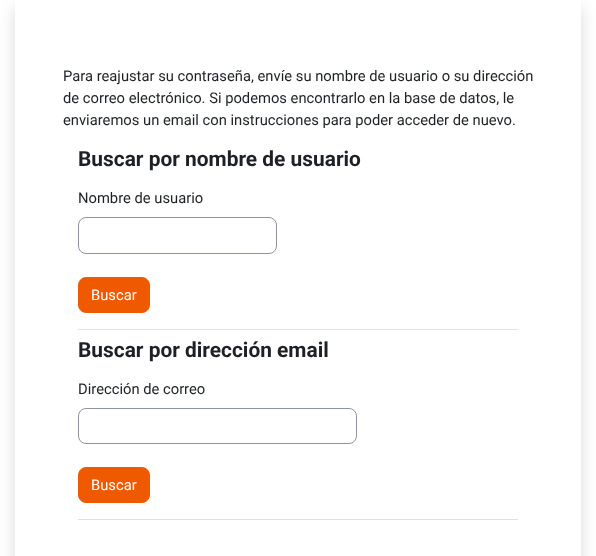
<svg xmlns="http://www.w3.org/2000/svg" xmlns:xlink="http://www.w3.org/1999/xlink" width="596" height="556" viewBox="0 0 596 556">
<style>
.cls-1{font:14.75px Roboto;fill:#1d2125}
.cls-2{font:bold 20.9px Roboto;fill:#1d2125}
.cls-3{font:14.75px Roboto;fill:#ffffff}
</style>
<defs>
<clipPath id="clip1"><path d="M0 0H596V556H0ZM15 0H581V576H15Z" clip-rule="evenodd"/></clipPath>
</defs>
<rect width="100%" height="100%" fill="#ffffff"/>
<g clip-path="url(#clip1)">
<rect fill="#000000" fill-opacity="0.15" filter="blur(8px)" x="15" y="8" width="566" height="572"/>
</g>
<rect fill="#dee2e6" x="78" y="329" width="440" height="1"/>
<rect fill="none" stroke="#8f959e" x="78.5" y="217.5" width="198" height="36" rx="7.5"/>
<rect fill="#ef5900" stroke="#ef5900" x="78.5" y="277.5" width="71" height="35" rx="7.5"/>
<rect fill="#dee2e6" x="78" y="519" width="440" height="1"/>
<rect fill="none" stroke="#8f959e" x="78.5" y="408.5" width="278" height="35" rx="7.5"/>
<rect fill="#ef5900" stroke="#ef5900" x="78.5" y="467.5" width="71" height="35" rx="7.5"/>
<text class="cls-1"><tspan x="63" y="81">Para reajustar su contraseña, envíe su nombre de usuario o su dirección</tspan><tspan x="63" y="103">de correo electrónico. Si podemos encontrarlo en la base de datos, le</tspan><tspan x="63" y="125">enviaremos un email con instrucciones para poder acceder de nuevo.</tspan></text>
<text class="cls-2" x="78" y="166">Buscar por nombre de usuario</text>
<text class="cls-1" x="78" y="203">Nombre de usuario</text>
<text class="cls-3" x="91" y="300">Buscar</text>
<text class="cls-2" x="78" y="357">Buscar por dirección email</text>
<text class="cls-1" x="78" y="394">Dirección de correo</text>
<text class="cls-3" x="91" y="490">Buscar</text>
</svg>
